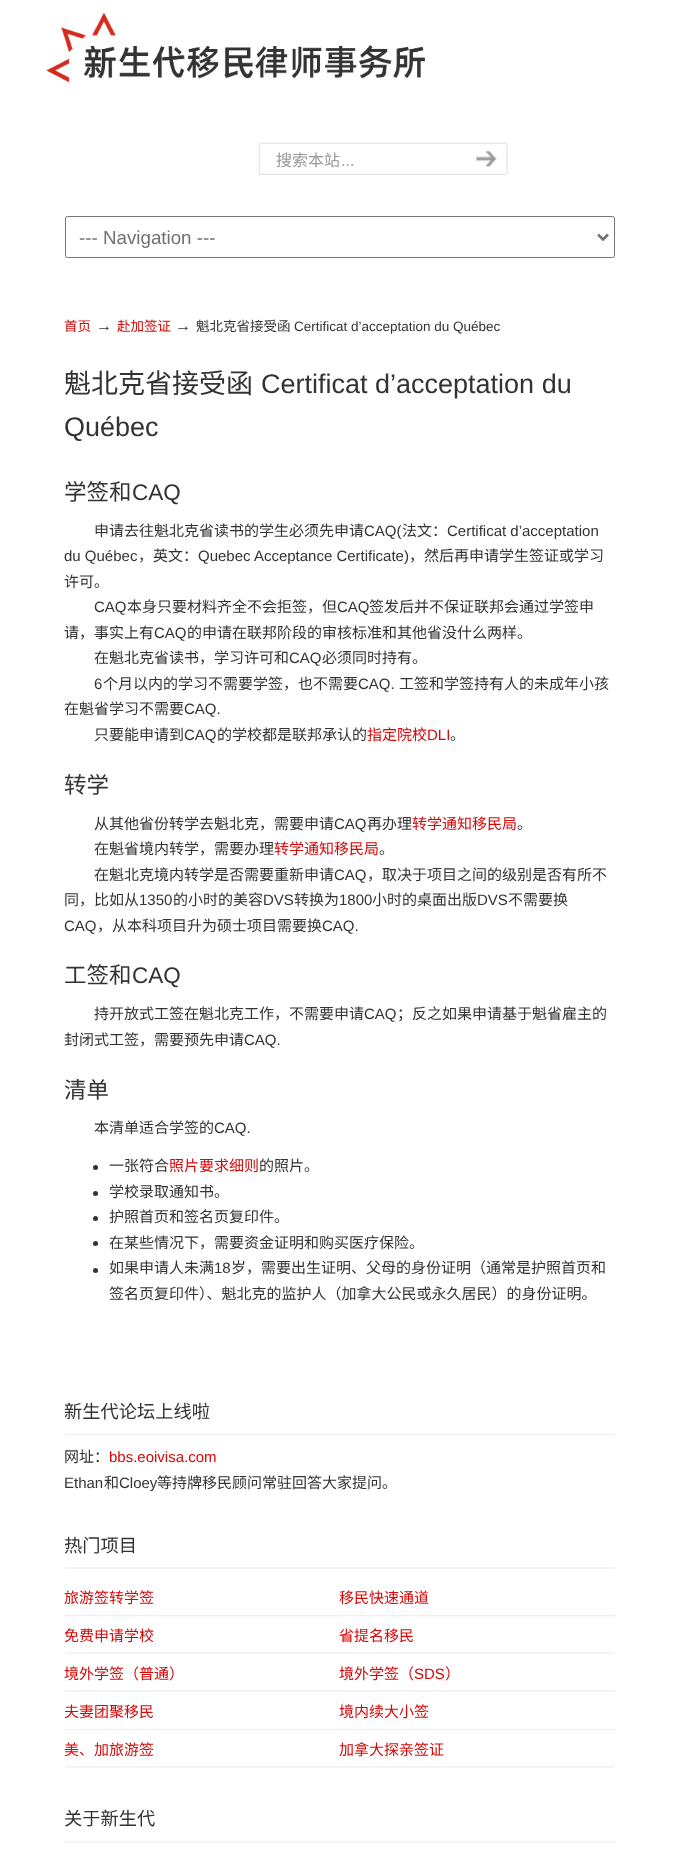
<svg xmlns="http://www.w3.org/2000/svg" xmlns:xlink="http://www.w3.org/1999/xlink" width="678" height="1864" viewBox="0 0 678 1864">
<style>
.cls-1{font:16px Noto Sans CJK SC;fill:#999999}
.cls-2{font:16px Liberation Sans;fill:#999999}
.cls-3{font:18.75px Liberation Sans;fill:#717171}
.cls-4{font:13.5px Noto Sans CJK SC;fill:#d60707}
.cls-5{font:16px Liberation Sans;fill:#333333}
.cls-6{font:13.5px Noto Sans CJK SC;fill:#333333}
.cls-7{font:13.5px Liberation Sans;fill:#333333}
.cls-8{font:27px Noto Sans CJK SC;fill:#333333}
.cls-9{font:27px Liberation Sans;fill:#333333}
.cls-10{font:22.5px Noto Sans CJK SC;fill:#333333}
.cls-11{font:22.5px Liberation Sans;fill:#333333}
.cls-12{font:15px Noto Sans CJK SC;fill:#333333}
.cls-13{font:15px Liberation Sans;fill:#333333}
.cls-14{font:15px Noto Sans CJK SC;fill:#d60707}
.cls-15{font:15px Liberation Sans;fill:#d60707}
.cls-16{font:18.25px Noto Sans CJK SC;fill:#333333}
</style>
<rect width="100%" height="100%" fill="#ffffff"/>
<image xlink:href="image0.png" x="46" y="12" width="379" height="71"/>
<image xlink:href="image1.png" x="258" y="142" width="200" height="33"/>
<image xlink:href="image2.png" x="457" y="142" width="51" height="33"/>
<rect fill="none" stroke="#767676" x="65.5" y="216.5" width="549" height="41" rx="2"/>
<path fill="none" stroke="#717171" stroke-width="2.5" d="M598 234.5L603 239.5L608 234.5"/>
<circle fill="#333333" cx="95.5" cy="1167.5" r="2.5"/>
<circle fill="#333333" cx="95.5" cy="1193.5" r="2.5"/>
<circle fill="#333333" cx="95.5" cy="1218.5" r="2.5"/>
<circle fill="#333333" cx="95.5" cy="1243.5" r="2.5"/>
<circle fill="#333333" cx="95.5" cy="1270.5" r="2.5"/>
<rect fill="#efefef" x="65" y="1434" width="550" height="1"/>
<image xlink:href="image3.png" x="65" y="1567" width="550" height="2"/>
<image xlink:href="image4.png" x="65" y="1615" width="275" height="2"/>
<image xlink:href="image4.png" x="340" y="1615" width="275" height="2"/>
<image xlink:href="image5.png" x="65" y="1652" width="275" height="2"/>
<image xlink:href="image5.png" x="340" y="1652" width="275" height="2"/>
<image xlink:href="image4.png" x="65" y="1690" width="275" height="2"/>
<image xlink:href="image4.png" x="340" y="1690" width="275" height="2"/>
<rect fill="#efefef" x="65" y="1729" width="550" height="1"/>
<image xlink:href="image6.png" x="65" y="1766" width="275" height="2"/>
<image xlink:href="image6.png" x="340" y="1766" width="275" height="2"/>
<image xlink:href="image7.png" x="65" y="1841" width="550" height="2"/>
<text class="cls-1" x="276" y="166">搜索本站</text>
<text class="cls-2" x="341" y="166">...</text>
<text class="cls-3" x="79" y="244">--- Navigation ---</text>
<text class="cls-4" x="64" y="331">首页</text>
<text class="cls-5" x="96" y="331">→</text>
<text class="cls-4" x="117" y="331">赴加签证</text>
<text class="cls-5" x="175" y="331">→</text>
<text class="cls-6" x="196" y="331">魁北克省接受函</text>
<text class="cls-7" x="294" y="331">Certificat d’acceptation du Québec</text>
<text class="cls-8" x="64" y="393">魁北克省接受函</text>
<text class="cls-9" x="261" y="393">Certificat d’acceptation du</text>
<text class="cls-9" x="64" y="436">Québec</text>
<text class="cls-10" x="64" y="500">学签和</text>
<text class="cls-11" x="132" y="500">CAQ</text>
<text class="cls-12" x="94" y="536">申请去往魁北克省读书的学生必须先申请</text>
<text class="cls-13" x="364" y="536">CAQ(</text>
<text class="cls-12" x="402" y="536">法文：</text>
<text class="cls-13" x="447" y="536">Certificat d’acceptation</text>
<text class="cls-13" x="64" y="561">du Québec</text>
<text class="cls-12" x="138" y="561">，英文：</text>
<text class="cls-13" x="198" y="561">Quebec Acceptance Certificate)</text>
<text class="cls-12" x="409" y="561">，然后再申请学生签证或学习</text>
<text class="cls-12" x="64" y="587">许可。</text>
<text class="cls-13" x="94" y="612">CAQ</text>
<text class="cls-12" x="127" y="612">本身只要材料齐全不会拒签，但</text>
<text class="cls-13" x="337" y="612">CAQ</text>
<text class="cls-12" x="369" y="612">签发后并不保证联邦会通过学签申</text>
<text class="cls-12" x="64" y="638">请，事实上有</text>
<text class="cls-13" x="154" y="638">CAQ</text>
<text class="cls-12" x="187" y="638">的申请在联邦阶段的审核标准和其他省没什么两样。</text>
<text class="cls-12" x="94" y="663">在魁北克省读书，学习许可和</text>
<text class="cls-13" x="289" y="663">CAQ</text>
<text class="cls-12" x="322" y="663">必须同时持有。</text>
<text class="cls-13" x="94" y="689">6</text>
<text class="cls-12" x="103" y="689">个月以内的学习不需要学签，也不需要</text>
<text class="cls-13" x="358" y="689">CAQ.</text>
<text class="cls-12" x="399" y="689">工签和学签持有人的未成年小孩</text>
<text class="cls-12" x="64" y="714">在魁省学习不需要</text>
<text class="cls-13" x="184" y="714">CAQ.</text>
<text class="cls-12" x="94" y="740">只要能申请到</text>
<text class="cls-13" x="184" y="740">CAQ</text>
<text class="cls-12" x="217" y="740">的学校都是联邦承认的</text>
<text class="cls-14" x="367" y="740">指定院校</text>
<text class="cls-15" x="427" y="740">DLI</text>
<text class="cls-12" x="450" y="740">。</text>
<text class="cls-10" x="64" y="793">转学</text>
<text class="cls-12" x="94" y="829">从其他省份转学去魁北克，需要申请</text>
<text class="cls-13" x="334" y="829">CAQ</text>
<text class="cls-12" x="367" y="829">再办理</text>
<text class="cls-14" x="412" y="829">转学通知移民局</text>
<text class="cls-12" x="517" y="829">。</text>
<text class="cls-12" x="94" y="854">在魁省境内转学，需要办理</text>
<text class="cls-14" x="274" y="854">转学通知移民局</text>
<text class="cls-12" x="379" y="854">。</text>
<text class="cls-12" x="94" y="880">在魁北克境内转学是否需要重新申请</text>
<text class="cls-13" x="334" y="880">CAQ</text>
<text class="cls-12" x="367" y="880">，取决于项目之间的级别是否有所不</text>
<text class="cls-12" x="64" y="905">同，比如从</text>
<text class="cls-13" x="139" y="905">1350</text>
<text class="cls-12" x="173" y="905">的小时的美容</text>
<text class="cls-13" x="263" y="905">DVS</text>
<text class="cls-12" x="294" y="905">转换为</text>
<text class="cls-13" x="339" y="905">1800</text>
<text class="cls-12" x="372" y="905">小时的桌面出版</text>
<text class="cls-13" x="477" y="905">DVS</text>
<text class="cls-12" x="508" y="905">不需要换</text>
<text class="cls-13" x="64" y="931">CAQ</text>
<text class="cls-12" x="97" y="931">，从本科项目升为硕士项目需要换</text>
<text class="cls-13" x="322" y="931">CAQ.</text>
<text class="cls-10" x="64" y="983">工签和</text>
<text class="cls-11" x="132" y="983">CAQ</text>
<text class="cls-12" x="94" y="1019">持开放式工签在魁北克工作，不需要申请</text>
<text class="cls-13" x="364" y="1019">CAQ</text>
<text class="cls-12" x="397" y="1019">；反之如果申请基于魁省雇主的</text>
<text class="cls-12" x="64" y="1045">封闭式工签，需要预先申请</text>
<text class="cls-13" x="244" y="1045">CAQ.</text>
<text class="cls-10" x="64" y="1098">清单</text>
<text class="cls-12" x="94" y="1133">本清单适合学签的</text>
<text class="cls-13" x="214" y="1133">CAQ.</text>
<text class="cls-12" x="109" y="1171">一张符合</text>
<text class="cls-14" x="169" y="1171">照片要求细则</text>
<text class="cls-12" x="259" y="1171">的照片。</text>
<text class="cls-12"><tspan x="109" y="1197">学校录取通知书。</tspan><tspan x="109" y="1222">护照首页和签名页复印件。</tspan><tspan x="109" y="1248">在某些情况下，需要资金证明和购买医疗保险。</tspan><tspan x="109" y="1273">如果申请人未满</tspan></text>
<text class="cls-13" x="214" y="1273">18</text>
<text class="cls-12" x="231" y="1273">岁，需要出生证明、父母的身份证明（通常是护照首页和</text>
<text class="cls-12" x="109" y="1299">签名页复印件）、魁北克的监护人（加拿大公民或永久居民）的身份证明。</text>
<text class="cls-16" x="64" y="1418">新生代论坛上线啦</text>
<text class="cls-12" x="64" y="1462">网址：</text>
<text class="cls-15" x="109" y="1462">bbs.eoivisa.com</text>
<text class="cls-13" x="64" y="1488">Ethan</text>
<text class="cls-12" x="104" y="1488">和</text>
<text class="cls-13" x="119" y="1488">Cloey</text>
<text class="cls-12" x="157" y="1488">等持牌移民顾问常驻回答大家提问。</text>
<text class="cls-16" x="64" y="1552">热门项目</text>
<text class="cls-14" x="64" y="1603">旅游签转学签</text>
<text class="cls-14" x="339" y="1603">移民快速通道</text>
<text class="cls-14" x="64" y="1641">免费申请学校</text>
<text class="cls-14" x="339" y="1641">省提名移民</text>
<text class="cls-14" x="64" y="1679">境外学签（普通）</text>
<text class="cls-14" x="339" y="1679">境外学签（</text>
<text class="cls-15" x="414" y="1679">SDS</text>
<text class="cls-14" x="445" y="1679">）</text>
<text class="cls-14" x="64" y="1717">夫妻团聚移民</text>
<text class="cls-14" x="339" y="1717">境内续大小签</text>
<text class="cls-14" x="64" y="1755">美、加旅游签</text>
<text class="cls-14" x="339" y="1755">加拿大探亲签证</text>
<text class="cls-16" x="64" y="1825">关于新生代</text>
</svg>
